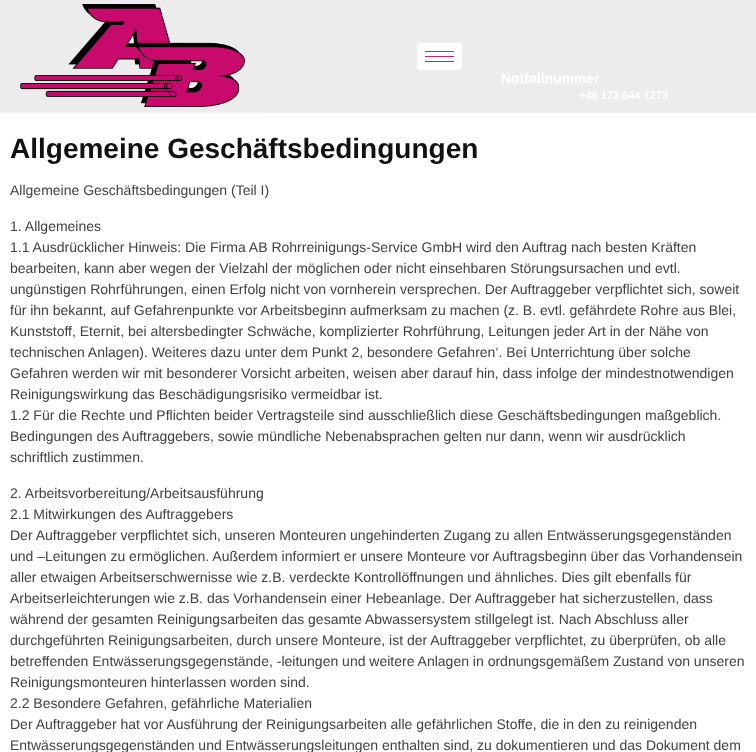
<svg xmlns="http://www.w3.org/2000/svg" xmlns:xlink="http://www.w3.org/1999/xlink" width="756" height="752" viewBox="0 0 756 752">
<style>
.cls-1{font:bold 14px Liberation Sans;fill:#ffffff}
.cls-2{font:bold 11px Liberation Sans;fill:#ffffff}
.cls-3{font:bold 28px Liberation Sans;fill:#111111}
.cls-4{font:14px Liberation Sans;fill:#414141}
</style>
<rect width="100%" height="100%" fill="#ffffff"/>
<rect fill="#ececec" x="0" y="0" width="756" height="113"/>
<rect fill="#efefef" x="0" y="112" width="265" height="1"/>
<image xlink:href="image0.png" x="20" y="4" width="225" height="103"/>
<rect fill="#ffffff" x="417" y="43" width="45" height="27" rx="3"/>
<rect fill="#b82b6e" x="425" y="51" width="29" height="1"/>
<rect fill="#b82b6e" x="425" y="56" width="29" height="1"/>
<rect fill="#b82b6e" x="425" y="61" width="29" height="1"/>
<text class="cls-1" x="501" y="83">Notfallnummer</text>
<text class="cls-2" x="579" y="99">+49 173 644 1273</text>
<text class="cls-3" x="10" y="158">Allgemeine Geschäftsbedingungen</text>
<text class="cls-4" x="10" y="195">Allgemeine Geschäftsbedingungen (Teil I)</text>
<text class="cls-4"><tspan x="10" y="231">1. Allgemeines</tspan><tspan x="10" y="252">1.1 Ausdrücklicher Hinweis: Die Firma AB Rohrreinigungs-Service GmbH wird den Auftrag nach besten Kräften</tspan><tspan x="10" y="273">bearbeiten, kann aber wegen der Vielzahl der möglichen oder nicht einsehbaren Störungsursachen und evtl.</tspan><tspan x="10" y="294">ungünstigen Rohrführungen, einen Erfolg nicht von vornherein versprechen. Der Auftraggeber verpflichtet sich, soweit</tspan><tspan x="10" y="315">für ihn bekannt, auf Gefahrenpunkte vor Arbeitsbeginn aufmerksam zu machen (z. B. evtl. gefährdete Rohre aus Blei,</tspan><tspan x="10" y="336">Kunststoff, Eternit, bei altersbedingter Schwäche, komplizierter Rohrführung, Leitungen jeder Art in der Nähe von</tspan><tspan x="10" y="357">technischen Anlagen). Weiteres dazu unter dem Punkt 2, besondere Gefahren‘. Bei Unterrichtung über solche</tspan><tspan x="10" y="378">Gefahren werden wir mit besonderer Vorsicht arbeiten, weisen aber darauf hin, dass infolge der mindestnotwendigen</tspan><tspan x="10" y="399">Reinigungswirkung das Beschädigungsrisiko vermeidbar ist.</tspan><tspan x="10" y="420">1.2 Für die Rechte und Pflichten beider Vertragsteile sind ausschließlich diese Geschäftsbedingungen maßgeblich.</tspan><tspan x="10" y="441">Bedingungen des Auftraggebers, sowie mündliche Nebenabsprachen gelten nur dann, wenn wir ausdrücklich</tspan><tspan x="10" y="462">schriftlich zustimmen.</tspan></text>
<text class="cls-4"><tspan x="10" y="498">2. Arbeitsvorbereitung/Arbeitsausführung</tspan><tspan x="10" y="519">2.1 Mitwirkungen des Auftraggebers</tspan><tspan x="10" y="540">Der Auftraggeber verpflichtet sich, unseren Monteuren ungehinderten Zugang zu allen Entwässerungsgegenständen</tspan><tspan x="10" y="561">und –Leitungen zu ermöglichen. Außerdem informiert er unsere Monteure vor Auftragsbeginn über das Vorhandensein</tspan><tspan x="10" y="582">aller etwaigen Arbeitserschwernisse wie z.B. verdeckte Kontrollöffnungen und ähnliches. Dies gilt ebenfalls für</tspan><tspan x="10" y="603">Arbeitserleichterungen wie z.B. das Vorhandensein einer Hebeanlage. Der Auftraggeber hat sicherzustellen, dass</tspan><tspan x="10" y="624">während der gesamten Reinigungsarbeiten das gesamte Abwassersystem stillgelegt ist. Nach Abschluss aller</tspan><tspan x="10" y="645">durchgeführten Reinigungsarbeiten, durch unsere Monteure, ist der Auftraggeber verpflichtet, zu überprüfen, ob alle</tspan><tspan x="10" y="666">betreffenden Entwässerungsgegenstände, -leitungen und weitere Anlagen in ordnungsgemäßem Zustand von unseren</tspan><tspan x="10" y="687">Reinigungsmonteuren hinterlassen worden sind.</tspan><tspan x="10" y="708">2.2 Besondere Gefahren, gefährliche Materialien</tspan><tspan x="10" y="729">Der Auftraggeber hat vor Ausführung der Reinigungsarbeiten alle gefährlichen Stoffe, die in den zu reinigenden</tspan><tspan x="10" y="750">Entwässerungsgegenständen und Entwässerungsleitungen enthalten sind, zu dokumentieren und das Dokument dem</tspan></text>
</svg>
